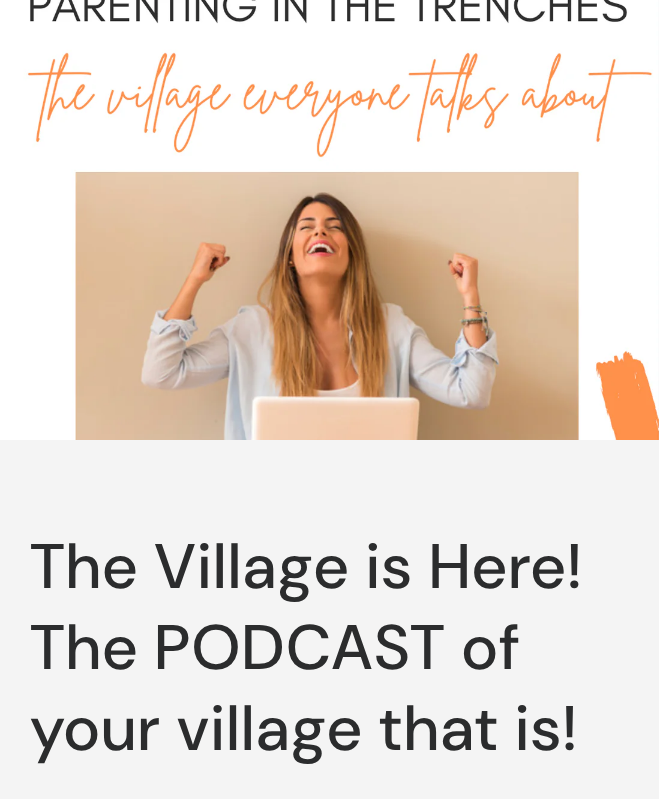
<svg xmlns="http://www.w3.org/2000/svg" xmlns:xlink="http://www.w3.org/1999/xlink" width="659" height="799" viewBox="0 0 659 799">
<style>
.cls-1{font:500 63px DM Sans;letter-spacing:1.25px;fill:#2b2c2d}
</style>
<rect width="100%" height="100%" fill="#f4f4f4"/>
<image xlink:href="image0.png" x="0" y="0" width="659" height="440"/>
<text class="cls-1"><tspan x="30" y="588">The Village is Here!</tspan><tspan x="30" y="669">The PODCAST of</tspan><tspan x="30" y="750">your village that is!</tspan></text>
</svg>
